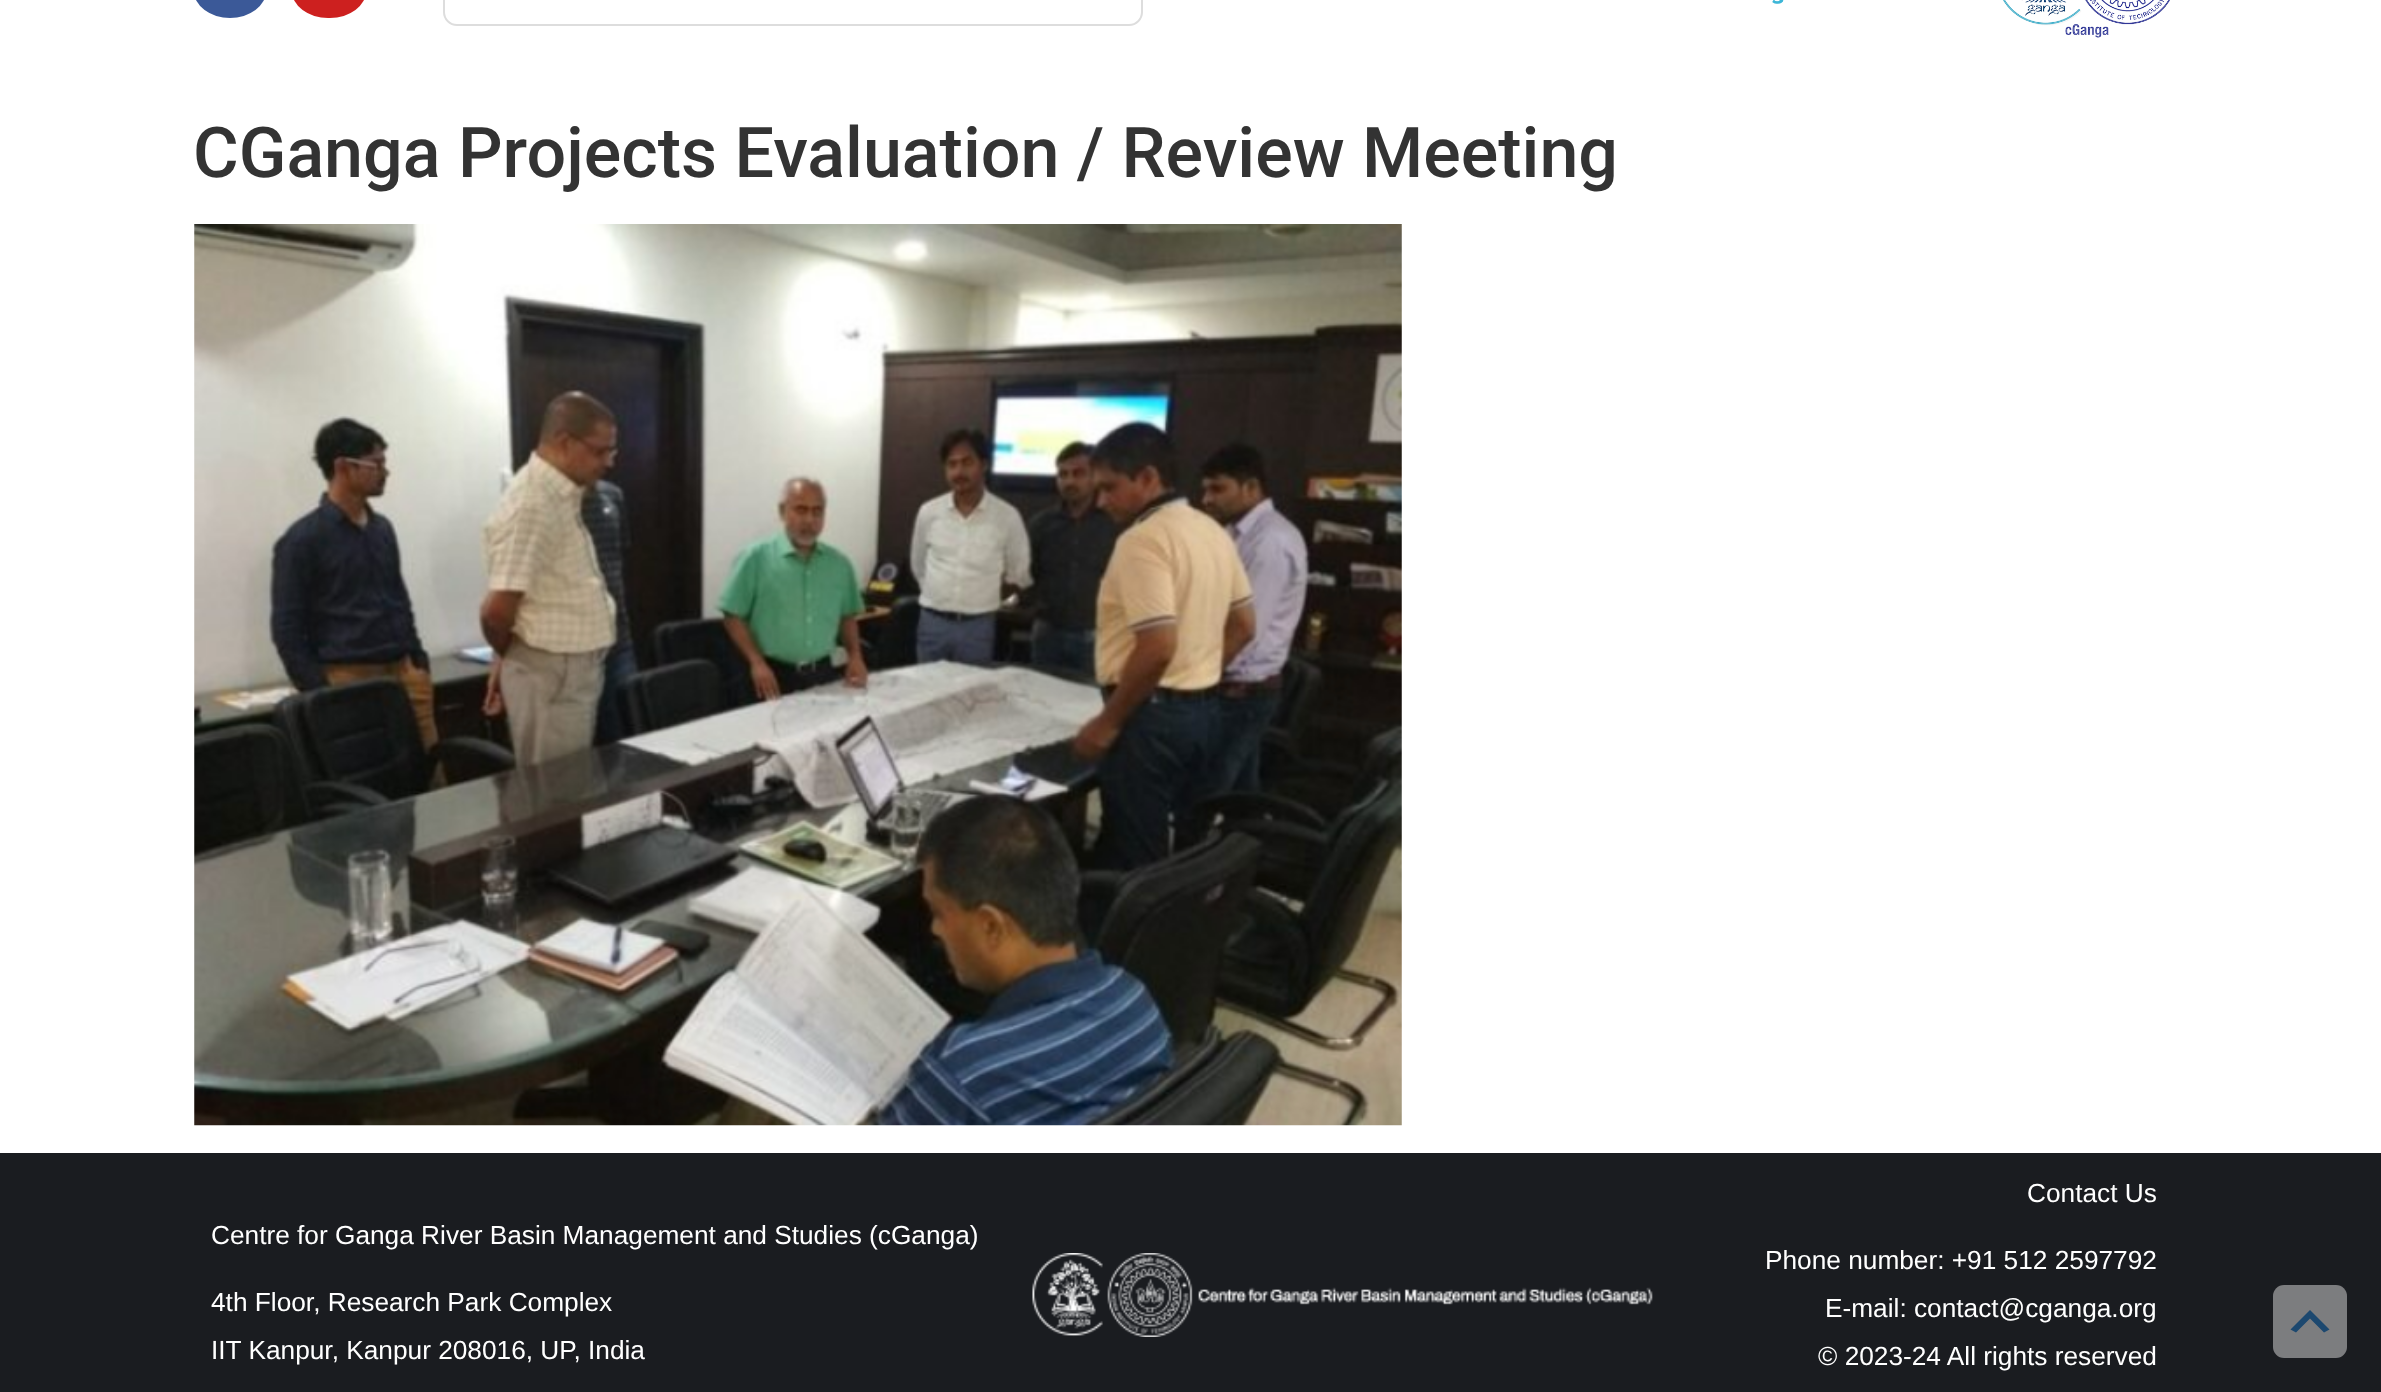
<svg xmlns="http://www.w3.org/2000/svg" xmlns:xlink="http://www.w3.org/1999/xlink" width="2381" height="1392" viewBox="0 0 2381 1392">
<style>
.cls-1{font:500 70px Roboto;fill:#333333}
.cls-2{font:26.25px Liberation Sans;fill:#ffffff}
</style>
<rect width="100%" height="100%" fill="#ffffff"/>
<rect fill="#3b5998" x="194" y="-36" width="72" height="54" rx="36"/>
<rect fill="#cd201f" x="292" y="-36" width="74" height="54" rx="36"/>
<rect fill="none" stroke="#dddddd" stroke-width="2" x="444" y="-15" width="698" height="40" rx="13"/>
<image xlink:href="image0.png" x="1772" y="0" width="398" height="38"/>
<image xlink:href="image1.png" x="194" y="224" width="1208" height="902"/>
<rect fill="#1a1c20" x="0" y="1153" width="2381" height="239"/>
<image xlink:href="image2.png" x="1032" y="1253" width="621" height="84"/>
<rect fill="#7c7d7f" x="2273" y="1285" width="74" height="73" rx="11"/>
<path fill="#1c486f" d="M2324 1332.5L2310 1318.5L2296 1332.5L2290.5 1329.5L2310 1310L2329.5 1329.5Z"/>
<text class="cls-1" x="193" y="177">CGanga Projects Evaluation / Review Meeting</text>
<text class="cls-2" x="211" y="1244">Centre for Ganga River Basin Management and Studies (cGanga)</text>
<text class="cls-2"><tspan x="211" y="1311">4th Floor, Research Park Complex</tspan><tspan x="211" y="1359">IIT Kanpur, Kanpur 208016, UP, India</tspan></text>
<text class="cls-2" x="2027" y="1202">Contact Us</text>
<text class="cls-2" x="1765" y="1269">Phone number: +91 512 2597792</text>
<text class="cls-2" x="1825" y="1317">E-mail: contact@cganga.org</text>
<text class="cls-2" x="1818" y="1365">© 2023-24 All rights reserved</text>
</svg>
